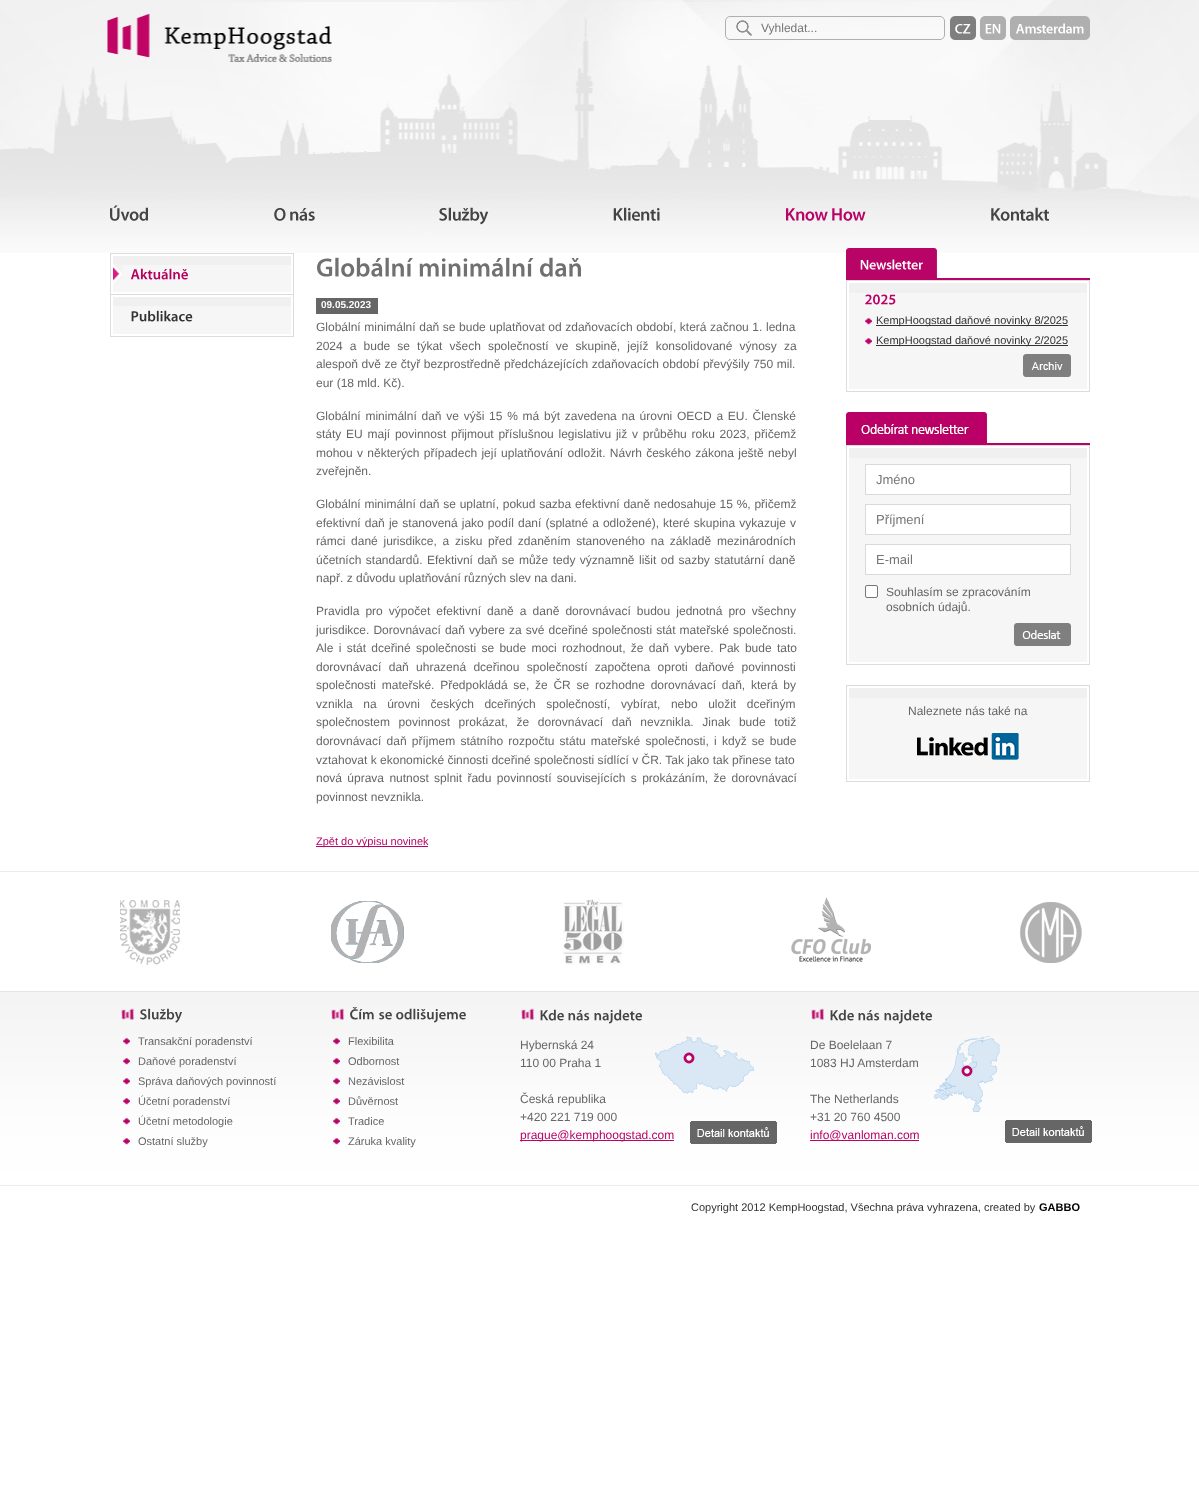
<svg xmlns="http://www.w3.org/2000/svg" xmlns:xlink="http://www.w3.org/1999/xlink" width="1199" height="1492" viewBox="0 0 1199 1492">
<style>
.cls-1{font:12px Liberation Sans;fill:#757575}
.cls-2{font:bold 10px Liberation Sans;fill:#ffffff}
.cls-3{font:12px Liberation Sans;fill:#666666}
.cls-4{font:11px Liberation Sans;fill:#b80367}
.cls-5{font:11px Liberation Sans;fill:#323232}
.cls-6{font:13px Liberation Sans;fill:#757575}
.cls-7{font:11px Liberation Sans;fill:#666666}
.cls-8{font:12px Liberation Sans;fill:#b80367}
.cls-9{font:bold 11px Liberation Sans;fill:#000000}
</style>
<rect width="100%" height="100%" fill="#ffffff"/>
<image xlink:href="image0.png" x="0" y="0" width="1199" height="253"/>
<image xlink:href="image1.png" x="736" y="20" width="16" height="16"/>
<rect fill="none" stroke="#afafaf" x="725.5" y="16.5" width="219" height="23" rx="4.5"/>
<image xlink:href="image2.png" x="950" y="16" width="26" height="24"/>
<image xlink:href="image3.png" x="980" y="16" width="26" height="24"/>
<image xlink:href="image4.png" x="1010" y="16" width="80" height="24"/>
<image xlink:href="image5.png" x="110" y="205" width="38" height="16"/>
<image xlink:href="image6.png" x="274" y="208" width="41" height="13"/>
<image xlink:href="image7.png" x="439" y="207" width="50" height="18"/>
<image xlink:href="image8.png" x="613" y="207" width="47" height="14"/>
<image xlink:href="image9.png" x="786" y="208" width="80" height="13"/>
<image xlink:href="image10.png" x="991" y="207" width="58" height="14"/>
<rect fill="#dcdcdc" x="293" y="253" width="1" height="84"/>
<rect fill="#dcdcdc" x="110" y="336" width="184" height="1"/>
<rect fill="#dcdcdc" x="110" y="253" width="1" height="84"/>
<rect fill="#dcdcdc" x="111" y="253" width="182" height="1"/>
<rect fill="#f6f6f6" x="113" y="265" width="178" height="27"/>
<rect fill="#f0f0f0" x="113" y="256" width="178" height="9"/>
<image xlink:href="image11.png" x="113" y="264" width="9" height="19"/>
<image xlink:href="image12.png" x="131" y="268" width="57" height="12"/>
<rect fill="#dcdcdc" x="111" y="294" width="182" height="1"/>
<rect fill="#f6f6f6" x="113" y="306" width="178" height="28"/>
<rect fill="#f0f0f0" x="113" y="297" width="178" height="9"/>
<image xlink:href="image13.png" x="131" y="310" width="62" height="12"/>
<image xlink:href="image14.png" x="317" y="257" width="96" height="20"/>
<image xlink:href="image15.png" x="419" y="257" width="115" height="20"/>
<image xlink:href="image16.png" x="540" y="257" width="41" height="20"/>
<rect fill="#666666" x="316" y="298" width="62" height="16"/>
<rect fill="#b80367" x="316" y="846" width="112" height="1"/>
<image xlink:href="image17.png" x="846" y="248" width="244" height="32"/>
<rect fill="none" stroke="#dcdcdc" x="846.5" y="280.5" width="243" height="111"/>
<rect fill="#f6f6f6" x="849" y="293" width="238" height="96"/>
<rect fill="#f0f0f0" x="849" y="283" width="238" height="10"/>
<image xlink:href="image18.png" x="865" y="294" width="31" height="11"/>
<image xlink:href="image19.png" x="865" y="318" width="7" height="7"/>
<rect fill="#323232" x="876" y="325" width="192" height="1"/>
<image xlink:href="image19.png" x="865" y="338" width="7" height="7"/>
<rect fill="#323232" x="876" y="345" width="192" height="1"/>
<image xlink:href="image20.png" x="1023" y="354" width="48" height="23"/>
<image xlink:href="image21.png" x="846" y="412" width="244" height="33"/>
<rect fill="none" stroke="#dcdcdc" x="846.5" y="445.5" width="243" height="219"/>
<rect fill="#f6f6f6" x="849" y="458" width="238" height="204"/>
<rect fill="#f0f0f0" x="849" y="448" width="238" height="10"/>
<rect fill="#ffffff" stroke="#dad9d9" x="865.5" y="464.5" width="205" height="30"/>
<rect fill="#ffffff" stroke="#dad9d9" x="865.5" y="504.5" width="205" height="30"/>
<rect fill="#ffffff" stroke="#dad9d9" x="865.5" y="544.5" width="205" height="30"/>
<rect fill="#ffffff" stroke="#767676" x="865.5" y="585.5" width="12" height="12" rx="1.5"/>
<image xlink:href="image22.png" x="1014" y="623" width="57" height="23"/>
<rect fill="none" stroke="#dcdcdc" x="846.5" y="685.5" width="243" height="96"/>
<rect fill="#f6f6f6" x="849" y="698" width="238" height="81"/>
<rect fill="#f0f0f0" x="849" y="688" width="238" height="10"/>
<image xlink:href="image23.png" x="917" y="733" width="102" height="27"/>
<rect fill="#ebebeb" x="0" y="871" width="1199" height="1"/>
<image xlink:href="image24.png" x="120" y="900" width="60" height="65"/>
<image xlink:href="image25.png" x="331" y="901" width="73" height="62"/>
<image xlink:href="image26.png" x="563" y="899" width="61" height="66"/>
<image xlink:href="image27.png" x="791" y="897" width="80" height="65"/>
<image xlink:href="image28.png" x="1020" y="902" width="62" height="61"/>
<image xlink:href="image29.png" x="0" y="991" width="1199" height="195"/>
<image xlink:href="image30.png" x="121" y="1008" width="14" height="12"/>
<image xlink:href="image31.png" x="140" y="1008" width="42" height="15"/>
<image xlink:href="image32.png" x="123" y="1038" width="7" height="7"/>
<image xlink:href="image33.png" x="123" y="1058" width="7" height="7"/>
<image xlink:href="image34.png" x="123" y="1078" width="7" height="7"/>
<image xlink:href="image35.png" x="123" y="1098" width="7" height="7"/>
<image xlink:href="image36.png" x="123" y="1118" width="7" height="7"/>
<image xlink:href="image37.png" x="123" y="1138" width="7" height="7"/>
<image xlink:href="image30.png" x="331" y="1008" width="14" height="12"/>
<image xlink:href="image38.png" x="350" y="1007" width="24" height="13"/>
<image xlink:href="image39.png" x="379" y="1012" width="13" height="8"/>
<image xlink:href="image40.png" x="396" y="1008" width="70" height="15"/>
<image xlink:href="image32.png" x="333" y="1038" width="7" height="7"/>
<image xlink:href="image33.png" x="333" y="1058" width="7" height="7"/>
<image xlink:href="image34.png" x="333" y="1078" width="7" height="7"/>
<image xlink:href="image35.png" x="333" y="1098" width="7" height="7"/>
<image xlink:href="image36.png" x="333" y="1118" width="7" height="7"/>
<image xlink:href="image37.png" x="333" y="1138" width="7" height="7"/>
<image xlink:href="image41.png" x="521" y="1008" width="14" height="12"/>
<image xlink:href="image42.png" x="540" y="1009" width="24" height="12"/>
<image xlink:href="image43.png" x="568" y="1010" width="22" height="11"/>
<image xlink:href="image44.png" x="594" y="1009" width="48" height="15"/>
<rect fill="#b80367" x="520" y="1140" width="154" height="1"/>
<image xlink:href="image45.png" x="655" y="1036" width="99" height="58"/>
<image xlink:href="image46.png" x="690" y="1121" width="87" height="23"/>
<image xlink:href="image47.png" x="811" y="1008" width="14" height="12"/>
<image xlink:href="image48.png" x="830" y="1009" width="24" height="12"/>
<image xlink:href="image49.png" x="858" y="1010" width="22" height="11"/>
<image xlink:href="image50.png" x="884" y="1009" width="48" height="15"/>
<rect fill="#b80367" x="810" y="1140" width="109" height="1"/>
<image xlink:href="image51.png" x="934" y="1036" width="66" height="77"/>
<image xlink:href="image46.png" x="1005" y="1120" width="87" height="23"/>
<text class="cls-1" x="761" y="32">Vyhledat...</text>
<text class="cls-2" x="321" y="308">09.05.2023</text>
<text class="cls-3"><tspan x="316" y="331" word-spacing="0.25">Globální minimální daň se bude uplatňovat od zdaňovacích období, která začnou 1. ledna</tspan><tspan x="316" y="350" word-spacing="3.75">2024 a bude se týkat všech společností ve skupině, jejíž konsolidované výnosy za</tspan><tspan x="316" y="368" word-spacing="0.25">alespoň dvě ze čtyř bezprostředně předcházejících zdaňovacích období převýšily 750 mil.</tspan><tspan x="316" y="387">eur (18 mld. Kč).</tspan></text>
<text class="cls-3"><tspan x="316" y="420" word-spacing="1.4">Globální minimální daň ve výši 15 % má být zavedena na úrovni OECD a EU. Členské</tspan><tspan x="316" y="438" word-spacing="1.4">státy EU mají povinnost přijmout příslušnou legislativu již v průběhu roku 2023, přičemž</tspan><tspan x="316" y="457" word-spacing="1">mohou v některých případech její uplatňování odložit. Návrh českého zákona ještě nebyl</tspan><tspan x="316" y="475">zveřejněn.</tspan></text>
<text class="cls-3"><tspan x="316" y="508" word-spacing="0.4">Globální minimální daň se uplatní, pokud sazba efektivní daně nedosahuje 15 %, přičemž</tspan><tspan x="316" y="527" word-spacing="0.75">efektivní daň je stanovená jako podíl daní (splatné a odložené), které skupina vykazuje v</tspan><tspan x="316" y="545" word-spacing="2.4">rámci dané jurisdikce, a zisku před zdaněním stanoveného na základě mezinárodních</tspan><tspan x="316" y="564" word-spacing="1.1">účetních standardů. Efektivní daň se může tedy významně lišit od sazby statutární daně</tspan><tspan x="316" y="582">např. z důvodu uplatňování různých slev na dani.</tspan></text>
<text class="cls-3"><tspan x="316" y="615" word-spacing="2.75">Pravidla pro výpočet efektivní daně a daně dorovnávací budou jednotná pro všechny</tspan><tspan x="316" y="634" word-spacing="0.75">jurisdikce. Dorovnávací daň vybere za své dceřiné společnosti stát mateřské společnosti.</tspan><tspan x="316" y="652" word-spacing="2">Ale i stát dceřiné společnosti se bude moci rozhodnout, že daň vybere. Pak bude tato</tspan><tspan x="316" y="671" word-spacing="4">dorovnávací daň uhrazená dceřinou společností započtena oproti daňové povinnosti</tspan><tspan x="316" y="689" word-spacing="2.4">společnosti mateřské. Předpokládá se, že ČR se rozhodne dorovnávací daň, která by</tspan><tspan x="316" y="708" word-spacing="7.25">vznikla na úrovni českých dceřiných společností, vybírat, nebo uložit dceřiným</tspan><tspan x="316" y="726" word-spacing="5.25">společnostem povinnost prokázat, že dorovnávací daň nevznikla. Jinak bude totiž</tspan><tspan x="316" y="745" word-spacing="1.9">dorovnávací daň příjmem státního rozpočtu státu mateřské společnosti, i když se bude</tspan><tspan x="316" y="764">vztahovat k ekonomické činnosti dceřiné společnosti sídlící v ČR. Tak jako tak přinese tato</tspan><tspan x="316" y="782" word-spacing="2">nová úprava nutnost splnit řadu povinností souvisejících s prokázáním, že dorovnávací</tspan><tspan x="316" y="801">povinnost nevznikla.</tspan></text>
<text class="cls-4" x="316" y="845">Zpět do výpisu novinek</text>
<text class="cls-5"><tspan x="876" y="324">KempHoogstad daňové novinky 8/2025</tspan><tspan x="876" y="344">KempHoogstad daňové novinky 2/2025</tspan></text>
<text class="cls-6" x="876" y="484">Jméno</text>
<text class="cls-6" x="876" y="524">Příjmení</text>
<text class="cls-6" x="876" y="564">E-mail</text>
<text class="cls-3"><tspan x="886" y="596">Souhlasím se zpracováním</tspan><tspan x="886" y="611">osobních údajů.</tspan></text>
<text class="cls-3" x="908" y="715">Naleznete nás také na</text>
<text class="cls-7"><tspan x="138" y="1045">Transakční poradenství</tspan><tspan x="138" y="1065">Daňové poradenství</tspan><tspan x="138" y="1085">Správa daňových povinností</tspan><tspan x="138" y="1105">Účetní poradenství</tspan><tspan x="138" y="1125">Účetní metodologie</tspan><tspan x="138" y="1145">Ostatní služby</tspan></text>
<text class="cls-7"><tspan x="348" y="1045">Flexibilita</tspan><tspan x="348" y="1065">Odbornost</tspan><tspan x="348" y="1085">Nezávislost</tspan><tspan x="348" y="1105">Důvěrnost</tspan><tspan x="348" y="1125">Tradice</tspan><tspan x="348" y="1145">Záruka kvality</tspan></text>
<text class="cls-3"><tspan x="520" y="1049">Hybernská 24</tspan><tspan x="520" y="1067">110 00 Praha 1</tspan></text>
<text class="cls-3"><tspan x="520" y="1103">Česká republika</tspan><tspan x="520" y="1121">+420 221 719 000</tspan></text>
<text class="cls-8" x="520" y="1139">prague@kemphoogstad.com</text>
<text class="cls-3"><tspan x="810" y="1049">De Boelelaan 7</tspan><tspan x="810" y="1067">1083 HJ Amsterdam</tspan></text>
<text class="cls-3"><tspan x="810" y="1103">The Netherlands</tspan><tspan x="810" y="1121">+31 20 760 4500</tspan></text>
<text class="cls-8" x="810" y="1139">info@vanloman.com</text>
<text class="cls-5" x="691" y="1211">Copyright 2012 KempHoogstad, Všechna práva vyhrazena, created by</text>
<text class="cls-9" x="1039" y="1211">GABBO</text>
</svg>
